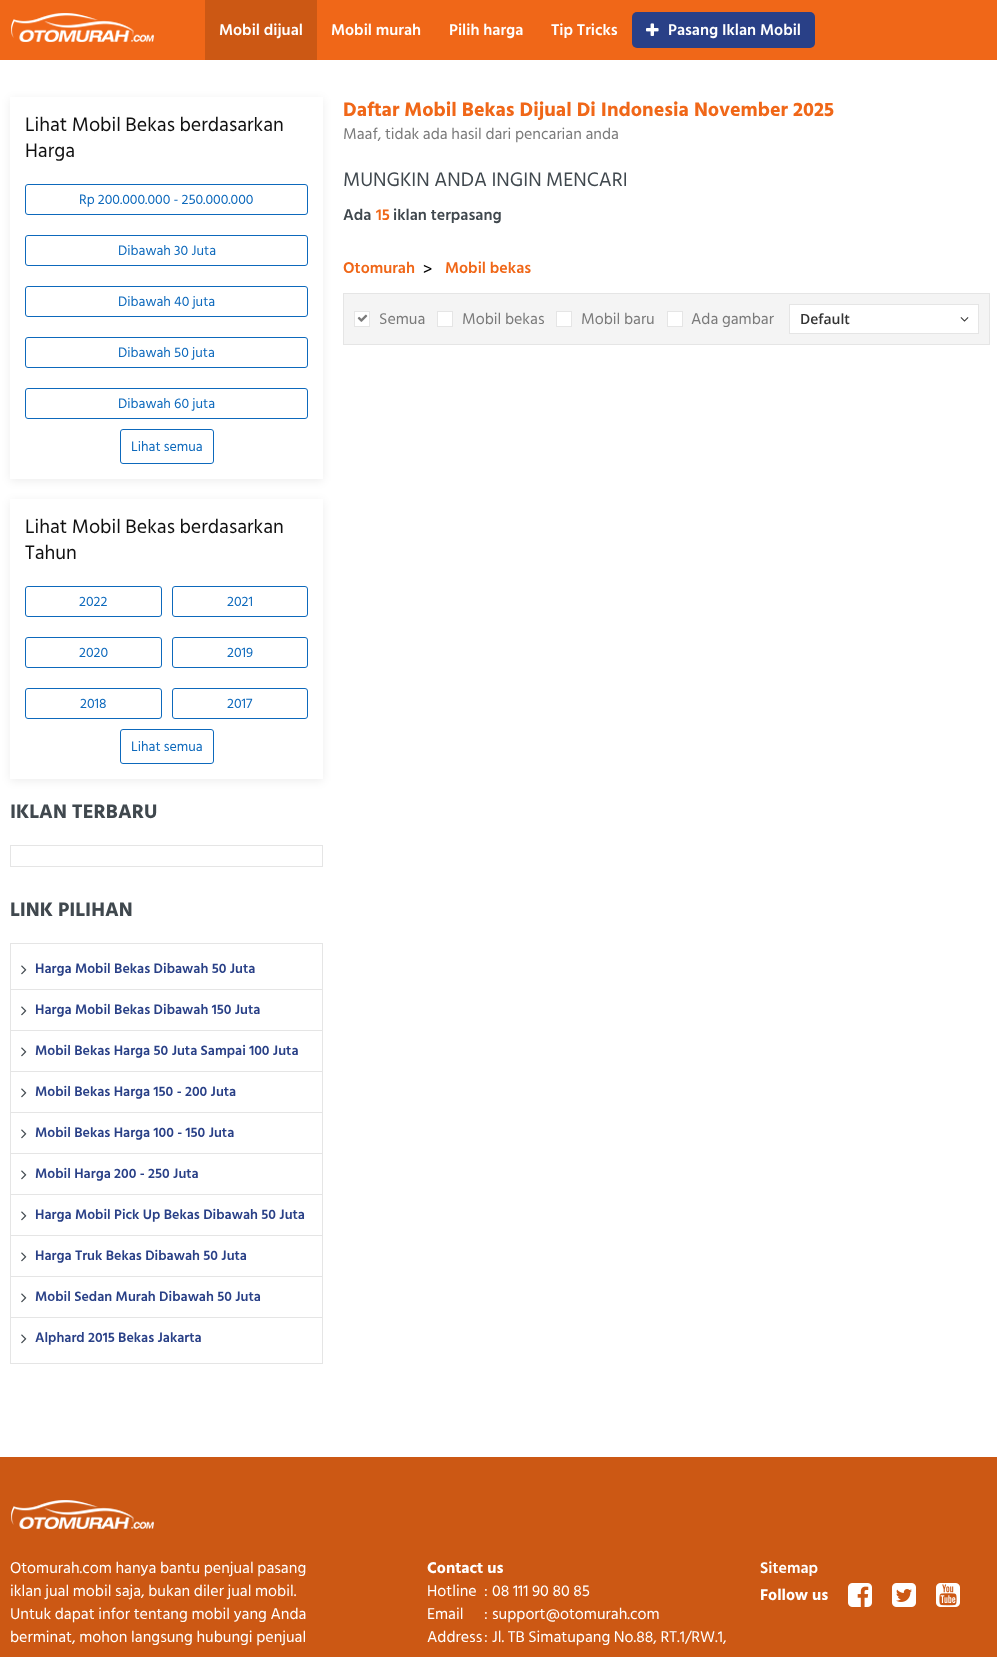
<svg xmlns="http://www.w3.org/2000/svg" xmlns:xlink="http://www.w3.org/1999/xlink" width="997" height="1657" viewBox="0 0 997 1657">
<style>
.cls-1{font:600 16px Hind Siliguri;fill:#ffffff}
.cls-2{font:20px Hind Siliguri;fill:#101010}
.cls-3{font:14px Hind Siliguri;fill:#0d69bc}
.cls-4{font:bold 20px Hind Siliguri;fill:#40484e}
.cls-5{font:600 14px Hind Siliguri;fill:#294087}
.cls-6{font:bold 20px Hind Siliguri;fill:#f06718}
.cls-7{font:16px Hind Siliguri;fill:#7a7a7a}
.cls-8{font:20px Hind Siliguri;fill:#40484e}
.cls-9{font:600 16px Hind Siliguri;fill:#40484e}
.cls-10{font:600 16px Hind Siliguri;fill:#f06718}
.cls-11{font:18px Hind Siliguri;fill:#000000}
.cls-12{font:600 14px Open Sans;fill:#333333}
.cls-13{font:16px Hind Siliguri;fill:#ffffff}
.cls-14{font:bold 16px Hind Siliguri;fill:#ffffff}
</style>
<defs>
<clipPath id="clip1"><path d="M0 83H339V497H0ZM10 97H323V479H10Z" clip-rule="evenodd"/></clipPath>
<clipPath id="clip2"><path d="M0 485H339V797H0ZM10 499H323V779H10Z" clip-rule="evenodd"/></clipPath>
</defs>
<rect width="100%" height="100%" fill="#ffffff"/>
<rect fill="#f06718" x="0" y="0" width="997" height="60"/>
<image xlink:href="image0.png" x="11" y="13" width="143" height="29"/>
<rect fill="#cc5814" x="205" y="0" width="112" height="60"/>
<rect fill="#294087" x="632" y="12" width="183" height="36" rx="5"/>
<image xlink:href="image1.png" x="646" y="23" width="13" height="13"/>
<g clip-path="url(#clip1)">
<rect fill="#000000" fill-opacity="0.07" filter="blur(5px)" x="10" y="99" width="313" height="382"/>
</g>
<rect fill="none" stroke="#0d69bc" x="25.5" y="184.5" width="282" height="30" rx="2.5"/>
<rect fill="none" stroke="#0d69bc" x="25.5" y="235.5" width="282" height="30" rx="2.5"/>
<rect fill="none" stroke="#0d69bc" x="25.5" y="286.5" width="282" height="30" rx="2.5"/>
<rect fill="none" stroke="#0d69bc" x="25.5" y="337.5" width="282" height="30" rx="2.5"/>
<rect fill="none" stroke="#0d69bc" x="25.5" y="388.5" width="282" height="30" rx="2.5"/>
<rect fill="none" stroke="#0d69bc" x="120.5" y="429.5" width="93" height="34" rx="2.5"/>
<g clip-path="url(#clip2)">
<rect fill="#000000" fill-opacity="0.07" filter="blur(5px)" x="10" y="501" width="313" height="280"/>
</g>
<rect fill="none" stroke="#0d69bc" x="25.5" y="586.5" width="136" height="30" rx="2.5"/>
<rect fill="none" stroke="#0d69bc" x="172.5" y="586.5" width="135" height="30" rx="2.5"/>
<rect fill="none" stroke="#0d69bc" x="25.5" y="637.5" width="136" height="30" rx="2.5"/>
<rect fill="none" stroke="#0d69bc" x="172.5" y="637.5" width="135" height="30" rx="2.5"/>
<rect fill="none" stroke="#0d69bc" x="25.5" y="688.5" width="136" height="30" rx="2.5"/>
<rect fill="none" stroke="#0d69bc" x="172.5" y="688.5" width="135" height="30" rx="2.5"/>
<rect fill="none" stroke="#0d69bc" x="120.5" y="729.5" width="93" height="34" rx="2.5"/>
<rect fill="none" stroke="#e5e5e5" x="10.5" y="845.5" width="312" height="21"/>
<rect fill="none" stroke="#e5e5e5" x="10.5" y="943.5" width="312" height="420"/>
<image xlink:href="image2.png" x="21" y="965" width="6" height="10"/>
<rect fill="#e5e5e5" x="11" y="989" width="311" height="1"/>
<image xlink:href="image2.png" x="21" y="1006" width="6" height="10"/>
<rect fill="#e5e5e5" x="11" y="1030" width="311" height="1"/>
<image xlink:href="image2.png" x="21" y="1047" width="6" height="10"/>
<rect fill="#e5e5e5" x="11" y="1071" width="311" height="1"/>
<image xlink:href="image2.png" x="21" y="1088" width="6" height="10"/>
<rect fill="#e5e5e5" x="11" y="1112" width="311" height="1"/>
<image xlink:href="image2.png" x="21" y="1129" width="6" height="10"/>
<rect fill="#e5e5e5" x="11" y="1153" width="311" height="1"/>
<image xlink:href="image2.png" x="21" y="1170" width="6" height="10"/>
<rect fill="#e5e5e5" x="11" y="1194" width="311" height="1"/>
<image xlink:href="image2.png" x="21" y="1211" width="6" height="10"/>
<rect fill="#e5e5e5" x="11" y="1235" width="311" height="1"/>
<image xlink:href="image2.png" x="21" y="1252" width="6" height="10"/>
<rect fill="#e5e5e5" x="11" y="1276" width="311" height="1"/>
<image xlink:href="image2.png" x="21" y="1293" width="6" height="10"/>
<rect fill="#e5e5e5" x="11" y="1317" width="311" height="1"/>
<image xlink:href="image2.png" x="21" y="1334" width="6" height="10"/>
<rect fill="#f4f4f4" stroke="#e5e5e5" x="343.5" y="293.5" width="646" height="51"/>
<rect fill="#ffffff" stroke="#e5e5e5" x="354.5" y="311.5" width="15" height="15"/>
<image xlink:href="image3.png" x="357" y="314" width="11" height="8"/>
<rect fill="#ffffff" stroke="#e5e5e5" x="437.5" y="311.5" width="15" height="15"/>
<rect fill="#ffffff" stroke="#e5e5e5" x="556.5" y="311.5" width="15" height="15"/>
<rect fill="#ffffff" stroke="#e5e5e5" x="667.5" y="311.5" width="15" height="15"/>
<rect fill="#ffffff" stroke="#e5e5e5" x="789.5" y="304.5" width="189" height="29"/>
<image xlink:href="image4.png" x="960" y="317" width="9" height="5"/>
<rect fill="#cc5814" x="0" y="1457" width="997" height="200"/>
<image xlink:href="image5.png" x="11" y="1500" width="143" height="29"/>
<image xlink:href="image6.png" x="848" y="1583" width="24" height="24"/>
<image xlink:href="image7.png" x="892" y="1583" width="24" height="24"/>
<image xlink:href="image8.png" x="936" y="1583" width="24" height="24"/>
<text class="cls-1" x="219" y="35">Mobil dijual</text>
<text class="cls-1" x="331" y="35">Mobil murah</text>
<text class="cls-1" x="449" y="35">Pilih harga</text>
<text class="cls-1" x="551" y="35">Tip Tricks</text>
<text class="cls-1" x="668" y="35">Pasang Iklan Mobil</text>
<text class="cls-2"><tspan x="25" y="131">Lihat Mobil Bekas berdasarkan</tspan><tspan x="25" y="157">Harga</tspan></text>
<text class="cls-3" x="79" y="204">Rp 200.000.000 - 250.000.000</text>
<text class="cls-3" x="118" y="255">Dibawah 30 Juta</text>
<text class="cls-3" x="118" y="306">Dibawah 40 juta</text>
<text class="cls-3" x="118" y="357">Dibawah 50 juta</text>
<text class="cls-3" x="118" y="408">Dibawah 60 juta</text>
<text class="cls-3" x="131" y="451">Lihat semua</text>
<text class="cls-2"><tspan x="25" y="533">Lihat Mobil Bekas berdasarkan</tspan><tspan x="25" y="559">Tahun</tspan></text>
<text class="cls-3" x="79" y="606">2022</text>
<text class="cls-3" x="227" y="606">2021</text>
<text class="cls-3" x="79" y="657">2020</text>
<text class="cls-3" x="227" y="657">2019</text>
<text class="cls-3" x="80" y="708">2018</text>
<text class="cls-3" x="227" y="708">2017</text>
<text class="cls-3" x="131" y="751">Lihat semua</text>
<text class="cls-4" x="10" y="818">IKLAN TERBARU</text>
<text class="cls-4" x="10" y="916">LINK PILIHAN</text>
<text class="cls-5" x="35" y="973">Harga Mobil Bekas Dibawah 50 Juta</text>
<text class="cls-5" x="35" y="1014">Harga Mobil Bekas Dibawah 150 Juta</text>
<text class="cls-5" x="35" y="1055">Mobil Bekas Harga 50 Juta Sampai 100 Juta</text>
<text class="cls-5" x="35" y="1096">Mobil Bekas Harga 150 - 200 Juta</text>
<text class="cls-5" x="35" y="1137">Mobil Bekas Harga 100 - 150 Juta</text>
<text class="cls-5" x="35" y="1178">Mobil Harga 200 - 250 Juta</text>
<text class="cls-5" x="35" y="1219">Harga Mobil Pick Up Bekas Dibawah 50 Juta</text>
<text class="cls-5" x="35" y="1260">Harga Truk Bekas Dibawah 50 Juta</text>
<text class="cls-5" x="35" y="1301">Mobil Sedan Murah Dibawah 50 Juta</text>
<text class="cls-5" x="35" y="1342">Alphard 2015 Bekas Jakarta</text>
<text class="cls-6" x="343" y="116">Daftar Mobil Bekas Dijual Di Indonesia November 2025</text>
<text class="cls-7" x="343" y="139">Maaf, tidak ada hasil dari pencarian anda</text>
<text class="cls-8" x="343" y="186">MUNGKIN ANDA INGIN MENCARI</text>
<text class="cls-9" x="343" y="220">Ada</text>
<text class="cls-10" x="376" y="220">15</text>
<text class="cls-9" x="393" y="220">iklan terpasang</text>
<text class="cls-10" x="343" y="273">Otomurah</text>
<text class="cls-11" x="423" y="275">&gt;</text>
<text class="cls-10" x="445" y="273">Mobil bekas</text>
<text class="cls-7" x="379" y="324">Semua</text>
<text class="cls-7" x="462" y="324">Mobil bekas</text>
<text class="cls-7" x="581" y="324">Mobil baru</text>
<text class="cls-7" x="691" y="324">Ada gambar</text>
<text class="cls-12" x="800" y="324">Default</text>
<text class="cls-13"><tspan x="10" y="1573">Otomurah.com hanya bantu penjual pasang</tspan><tspan x="10" y="1596">iklan jual mobil saja, bukan diler jual mobil.</tspan><tspan x="10" y="1619">Untuk dapat infor tentang mobil yang Anda</tspan><tspan x="10" y="1642">berminat, mohon langsung hubungi penjual</tspan></text>
<text class="cls-14" x="427" y="1573">Contact us</text>
<text class="cls-13" x="427" y="1596">Hotline</text>
<text class="cls-13" x="484" y="1596">:</text>
<text class="cls-13" x="492" y="1596">08 111 90 80 85</text>
<text class="cls-13" x="427" y="1619">Email</text>
<text class="cls-13" x="484" y="1619">:</text>
<text class="cls-13" x="492" y="1619">support@otomurah.com</text>
<text class="cls-13" x="427" y="1642">Address</text>
<text class="cls-13" x="484" y="1642">:</text>
<text class="cls-13" x="492" y="1642">Jl. TB Simatupang No.88, RT.1/RW.1,</text>
<text class="cls-1" x="760" y="1573">Sitemap</text>
<text class="cls-14" x="760" y="1600">Follow us</text>
</svg>
